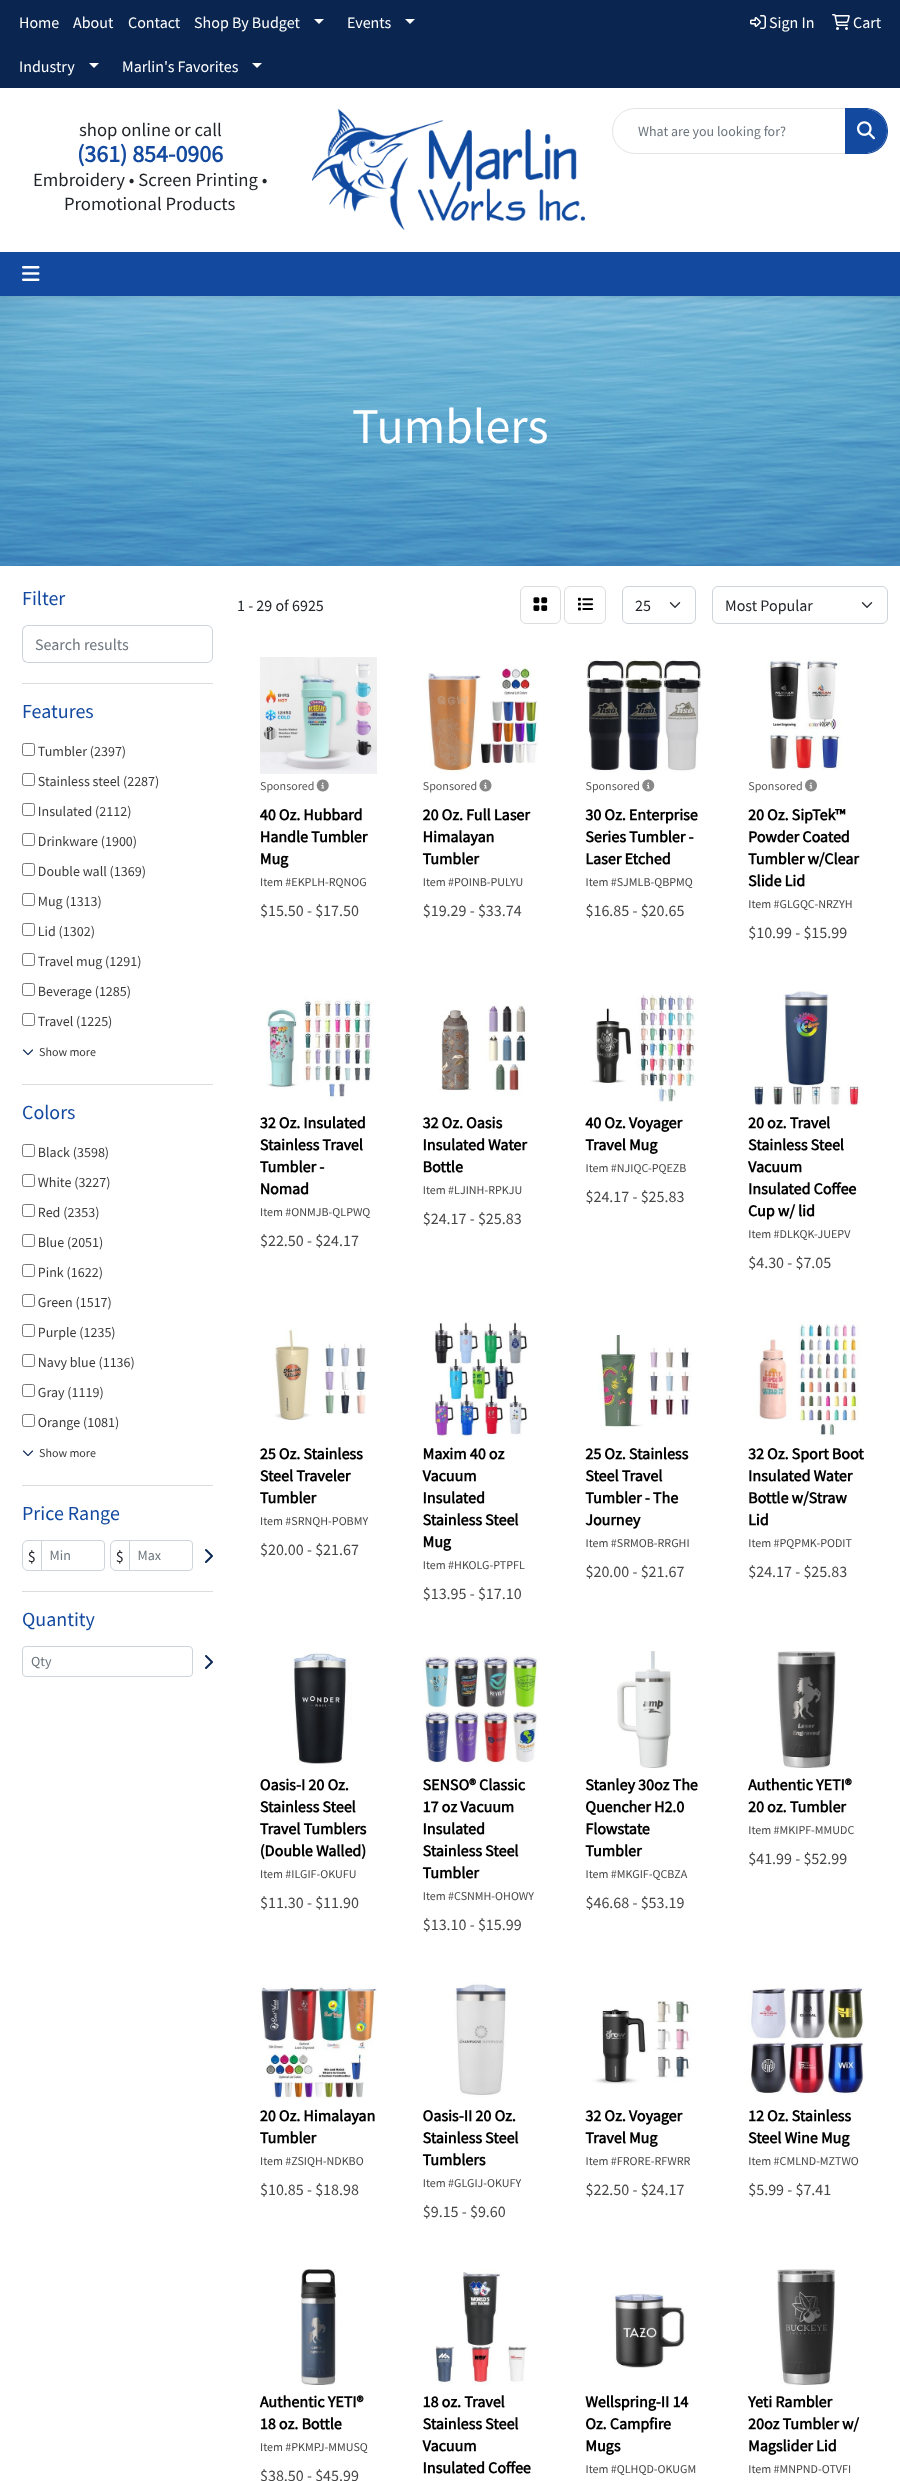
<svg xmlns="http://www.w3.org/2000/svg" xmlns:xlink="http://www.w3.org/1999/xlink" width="900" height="2481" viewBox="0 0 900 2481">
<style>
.cls-1{font:16px Source Sans Pro;fill:#ffffff}
.cls-2{font:18.7px Source Sans Pro;fill:#212529}
.cls-3{font:bold 24px Source Sans Pro;fill:#134aa0}
.cls-4{font:14px Source Sans Pro;fill:#6c757d}
.cls-5{font:50px Source Sans Pro;fill:#ffffff}
</style>
<rect width="100%" height="100%" fill="#ffffff"/>
<rect fill="#092550" x="0" y="0" width="900" height="88"/>
<path fill="#ffffff" d="M314 19H324L319 24Z"/>
<path fill="#ffffff" d="M405 19H415L410 24Z"/>
<path fill="#ffffff" d="M89 63H99L94 68Z"/>
<path fill="#ffffff" d="M252 63H262L257 68Z"/>
<image xlink:href="image0.png" x="750" y="15" width="16" height="14"/>
<image xlink:href="image1.png" x="832" y="14" width="18" height="16"/>
<image xlink:href="image2.png" x="312" y="108" width="273" height="122"/>
<path fill="none" stroke="#e4e4e4" d="M635 108.5H845.5V153.5H635C622.5 153.5 612.5 143.5 612.5 131C612.5 118.5 622.5 108.5 635 108.5Z"/>
<path fill="#134aa0" d="M845 109H865C877 109 887 119 887 131C887 143 877 153 865 153H845Z"/>
<path fill="#134aa0" fill-rule="evenodd" d="M845 108H865C878 108 888 118 888 131C888 144 878 154 865 154H845ZM845 109H865C877 109 887 119 887 131C887 143 877 153 865 153H845Z"/>
<image xlink:href="image3.png" x="857" y="121" width="18" height="19"/>
<image xlink:href="image5.png" x="0" y="296" width="900" height="270"/>
<rect fill="#000000" fill-opacity="0.07" filter="blur(2px)" x="0" y="254" width="900" height="44"/>
<rect fill="#134aa0" x="0" y="252" width="900" height="44"/>
<image xlink:href="image4.png" x="22" y="266" width="18" height="15"/>
<image xlink:href="image6.png" x="22" y="586" width="866" height="1895"/>
<text class="cls-1" x="19" y="28">Home</text>
<text class="cls-1" x="73" y="28">About</text>
<text class="cls-1" x="128" y="28">Contact</text>
<text class="cls-1" x="194" y="28">Shop By Budget</text>
<text class="cls-1" x="347" y="28">Events</text>
<text class="cls-1" x="19" y="72">Industry</text>
<text class="cls-1" x="122" y="72">Marlin's Favorites</text>
<text class="cls-1" x="769" y="28">Sign In</text>
<text class="cls-1" x="853" y="28">Cart</text>
<text class="cls-2" x="79" y="136">shop online or call</text>
<text class="cls-3" x="77" y="162">(361) 854-0906</text>
<text class="cls-2" x="33" y="186">Embroidery • Screen Printing •</text>
<text class="cls-2" x="64" y="210">Promotional Products</text>
<text class="cls-4" x="638" y="136">What are you looking for?</text>
<text class="cls-5" x="352" y="443">Tumblers</text>
</svg>
